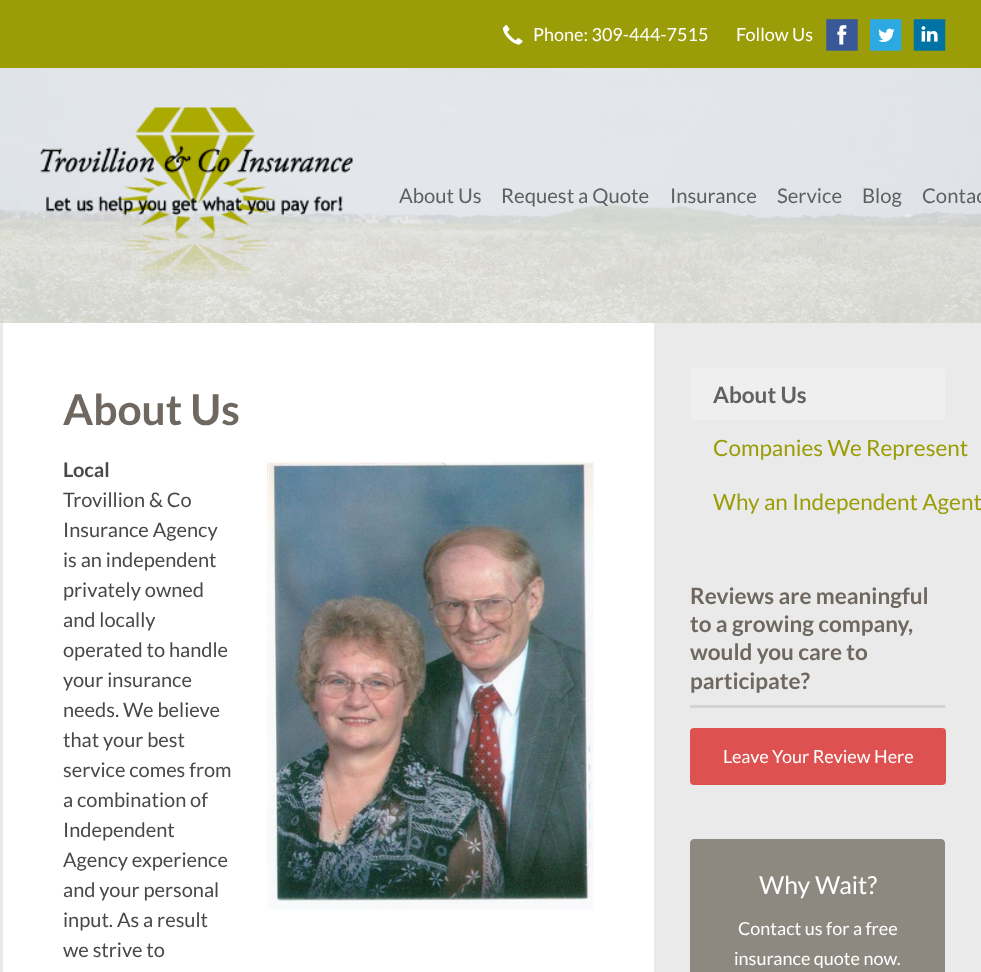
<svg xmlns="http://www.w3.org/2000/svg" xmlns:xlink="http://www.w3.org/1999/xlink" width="981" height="972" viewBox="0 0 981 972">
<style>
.cls-1{font:18px Lato;fill:#ffffff}
.cls-2{font:20.25px Lato;fill:#606060}
.cls-3{font:bold 42.5px Lato;fill:#6e6861}
.cls-4{font:bold 20px Lato;fill:#494949}
.cls-5{font:20px Lato;fill:#494949}
.cls-6{font:bold 22.5px Lato;fill:#606060}
.cls-7{font:22.5px Lato;fill:#9a9d07}
.cls-8{font:bold 22.5px Lato;fill:#6e6861}
.cls-9{font:24.75px Lato;fill:#ffffff}
</style>
<rect width="100%" height="100%" fill="#9a9d07"/>
<image xlink:href="image0.png" x="502" y="25" width="21" height="20"/>
<rect fill="#ffffff" x="837" y="25" width="10" height="20"/>
<image xlink:href="image1.png" x="826" y="19" width="32" height="32"/>
<rect fill="#ffffff" x="878" y="28" width="17" height="15"/>
<image xlink:href="image2.png" x="870" y="19" width="32" height="32"/>
<rect fill="#ffffff" x="921" y="26" width="17" height="16"/>
<image xlink:href="image3.png" x="913" y="19" width="33" height="32"/>
<rect fill="#d9d9d9" x="0" y="322" width="981" height="1"/>
<image xlink:href="image4.png" x="0" y="68" width="981" height="255"/>
<image xlink:href="image5.png" x="40" y="107" width="313" height="173"/>
<rect fill="#ffffff" x="3" y="323" width="651" height="649"/>
<rect fill="#ebeaea" x="0" y="323" width="3" height="649"/>
<image xlink:href="image6.png" x="267" y="462" width="327" height="448"/>
<rect fill="#eaeaea" x="654" y="323" width="327" height="649"/>
<rect fill="#efefef" x="690" y="368" width="255" height="52" rx="4"/>
<rect fill="#d3d3d3" x="690" y="705" width="255" height="3"/>
<rect fill="#de5151" x="690" y="728" width="256" height="57" rx="4"/>
<path fill="#8e8980" d="M694 839H941C943 839 945 841 945 843V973H690V843C690 841 692 839 694 839Z"/>
<text class="cls-1" x="533" y="41">Phone: 309-444-7515</text>
<text class="cls-1" x="736" y="41">Follow Us</text>
<text class="cls-2" x="399" y="203">About Us</text>
<text class="cls-2" x="501" y="203">Request a Quote</text>
<text class="cls-2" x="670" y="203">Insurance</text>
<text class="cls-2" x="777" y="203">Service</text>
<text class="cls-2" x="862" y="203">Blog</text>
<text class="cls-2" x="922" y="203">Contac</text>
<text class="cls-3" x="63" y="425">About Us</text>
<text class="cls-4" x="63" y="477">Local</text>
<text class="cls-5"><tspan x="63" y="507">Trovillion &amp; Co</tspan><tspan x="63" y="537">Insurance Agency</tspan><tspan x="63" y="567">is an independent</tspan><tspan x="63" y="597">privately owned</tspan><tspan x="63" y="627">and locally</tspan><tspan x="63" y="657">operated to handle</tspan><tspan x="63" y="687">your insurance</tspan><tspan x="63" y="717">needs. We believe</tspan><tspan x="63" y="747">that your best</tspan><tspan x="63" y="777">service comes from</tspan><tspan x="63" y="807">a combination of</tspan><tspan x="63" y="837">Independent</tspan><tspan x="63" y="867">Agency experience</tspan><tspan x="63" y="897">and your personal</tspan><tspan x="63" y="927">input. As a result</tspan><tspan x="63" y="957">we strive to</tspan></text>
<text class="cls-6" x="713" y="403">About Us</text>
<text class="cls-7" x="713" y="456">Companies We Represent</text>
<text class="cls-7" x="713" y="510">Why an Independent Agent</text>
<text class="cls-8"><tspan x="690" y="604">Reviews are meaningful</tspan><tspan x="690" y="632">to a growing company,</tspan><tspan x="690" y="660">would you care to</tspan><tspan x="690" y="689">participate?</tspan></text>
<text class="cls-1" x="723" y="763">Leave Your Review Here</text>
<text class="cls-9" x="759" y="894">Why Wait?</text>
<text class="cls-1" x="738" y="935">Contact us for a free</text>
<text class="cls-1" x="734" y="965">insurance quote now.</text>
</svg>
